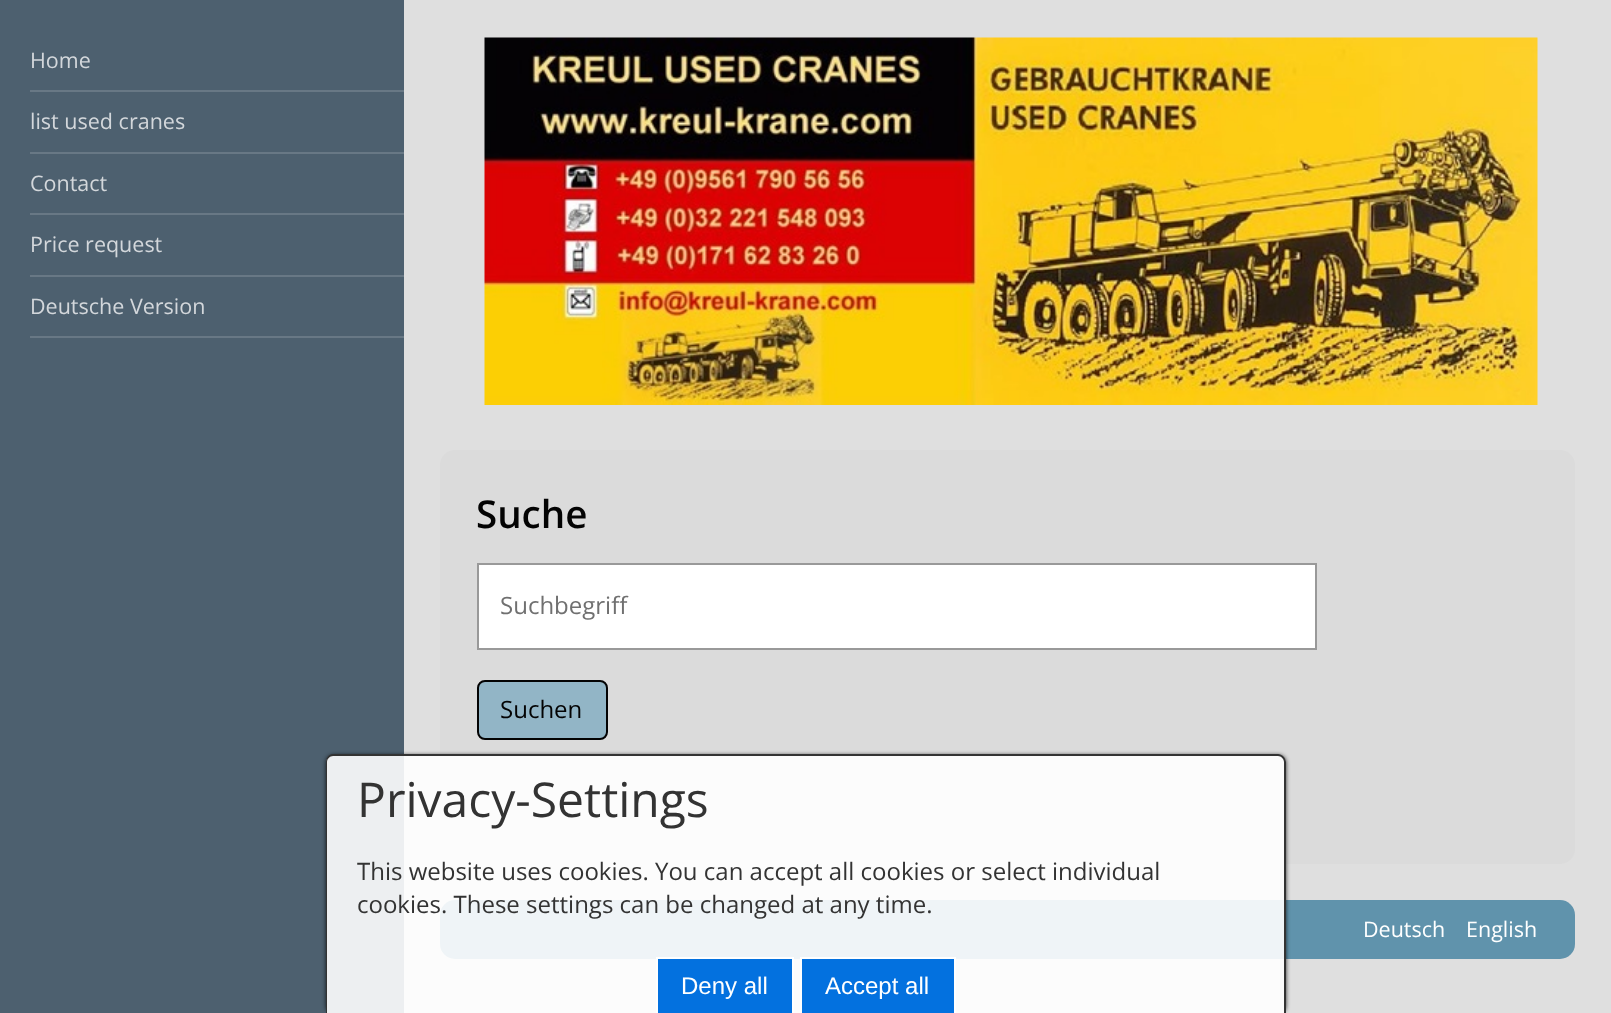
<svg xmlns="http://www.w3.org/2000/svg" xmlns:xlink="http://www.w3.org/1999/xlink" width="1611" height="1013" viewBox="0 0 1611 1013">
<style>
.cls-1{font:21.5px Open Sans;fill:#d3d7db}
.cls-2{font:600 38.5px Open Sans;fill:#030303}
.cls-3{font:24px Open Sans;fill:#707070}
.cls-4{font:24px Open Sans;fill:#030303}
.cls-5{font:21.5px Open Sans;fill:#ffffff}
.cls-6{font:48px Open Sans;fill:#333333}
.cls-7{font:24px Open Sans;fill:#333333}
.cls-8{font:24px Liberation Sans;fill:#ffffff}
</style>
<defs>
<clipPath id="clip1"><path d="M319 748H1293V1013H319ZM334 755H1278C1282.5 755 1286 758.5 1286 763V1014H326V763C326 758.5 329.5 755 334 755Z" clip-rule="evenodd"/></clipPath>
</defs>
<rect width="100%" height="100%" fill="#dfdfdf"/>
<rect fill="#4d606f" x="0" y="0" width="404" height="1013"/>
<rect fill="#687885" x="30" y="90" width="374" height="2"/>
<rect fill="#687885" x="30" y="152" width="374" height="2"/>
<rect fill="#687885" x="30" y="213" width="374" height="2"/>
<rect fill="#687885" x="30" y="275" width="374" height="2"/>
<rect fill="#687885" x="30" y="336" width="374" height="2"/>
<image xlink:href="image0.png" x="484" y="37" width="1054" height="368"/>
<rect fill="#dbdbdb" x="440" y="450" width="1135" height="414" rx="15"/>
<rect fill="#ffffff" stroke="#999999" stroke-width="2" x="478" y="564" width="838" height="85"/>
<rect fill="#92b5c6" stroke="#030303" stroke-width="2" x="478" y="681" width="129" height="58" rx="7"/>
<rect fill="#6093ac" x="440" y="900" width="1135" height="59" rx="15"/>
<g clip-path="url(#clip1)">
<rect fill="#000000" fill-opacity="0.8" filter="blur(2px)" x="326" y="755" width="960" height="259" rx="8"/>
</g>
<path fill="#ffffff" fill-opacity="0.9" d="M334 755H1278C1282.5 755 1286 758.5 1286 763V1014H326V763C326 758.5 329.5 755 334 755Z"/>
<path fill="#333333" fill-rule="evenodd" d="M333 754H1278C1282 754 1286 758 1286 762V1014H326V762C326 758 329 754 333 754ZM333 756H1278C1281 756 1284 759 1284 762V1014H327V762C327 759 330 756 333 756Z"/>
<rect fill="#0371df" x="658" y="959" width="134" height="54"/>
<path fill="#ffffff" d="M656 957V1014H658V959H792V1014H794V957Z"/>
<rect fill="#0371df" x="802" y="959" width="152" height="54"/>
<path fill="#ffffff" d="M800 957V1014H802V959H954V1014H956V957Z"/>
<text class="cls-1" x="30" y="68">Home</text>
<text class="cls-1" x="30" y="129">list used cranes</text>
<text class="cls-1" x="30" y="191">Contact</text>
<text class="cls-1" x="30" y="252">Price request</text>
<text class="cls-1" x="30" y="314">Deutsche Version</text>
<text class="cls-2" x="476" y="528">Suche</text>
<text class="cls-3" x="500" y="614">Suchbegriff</text>
<text class="cls-4" x="500" y="718">Suchen</text>
<text class="cls-5" x="1363" y="937">Deutsch</text>
<text class="cls-5" x="1466" y="937">English</text>
<text class="cls-6" x="357" y="817">Privacy-Settings</text>
<text class="cls-7"><tspan x="357" y="880">This website uses cookies. You can accept all cookies or select individual</tspan><tspan x="357" y="913">cookies. These settings can be changed at any time.</tspan></text>
<text class="cls-8" x="681" y="994">Deny all</text>
<text class="cls-8" x="825" y="994">Accept all</text>
</svg>
